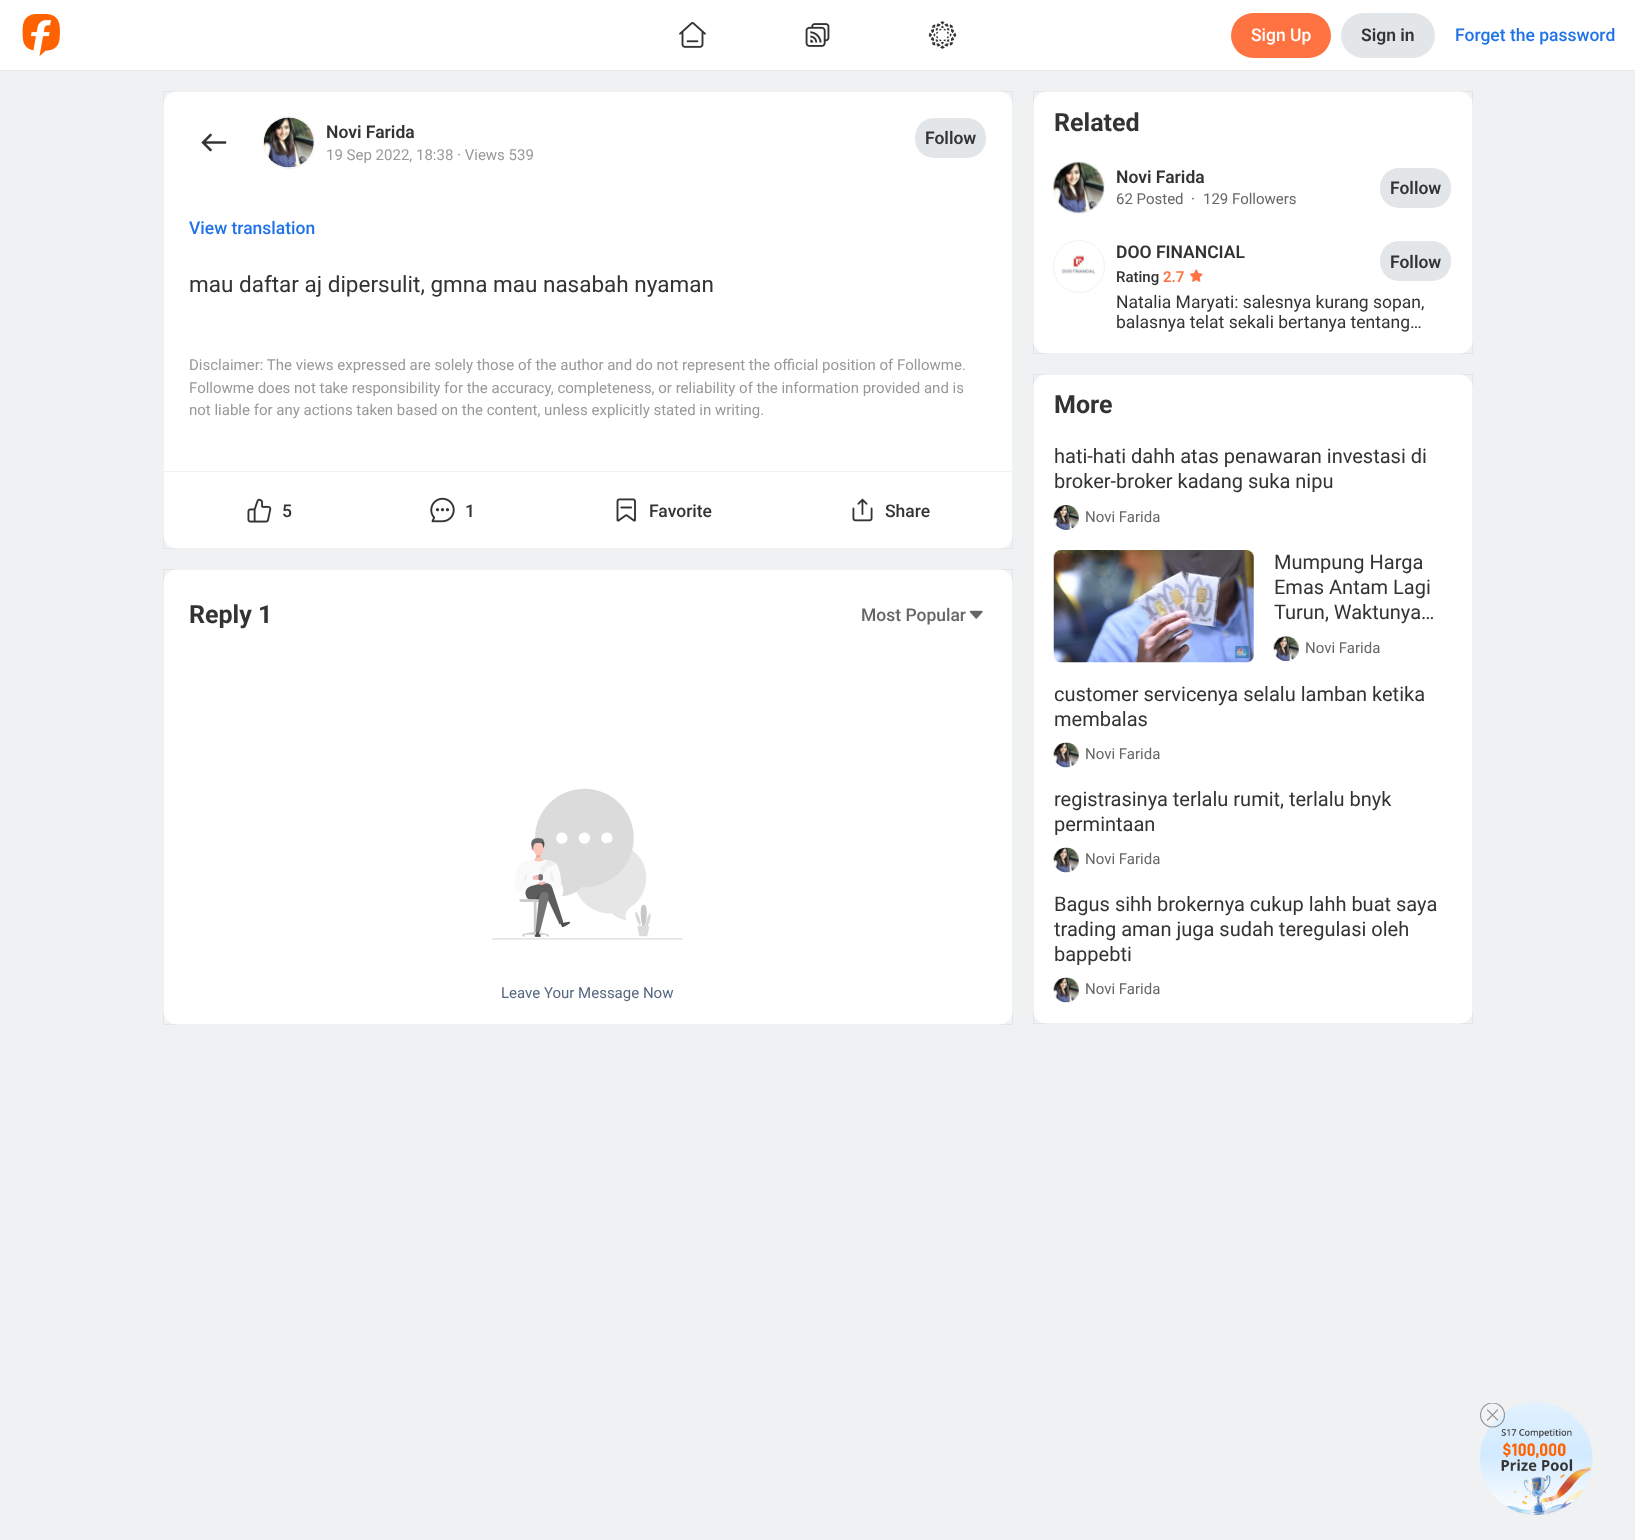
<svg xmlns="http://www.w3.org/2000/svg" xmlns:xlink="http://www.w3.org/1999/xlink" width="1635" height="1540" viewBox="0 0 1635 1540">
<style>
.cls-1{font:500 17.5px Roboto;fill:#ffffff}
.cls-2{font:600 17.5px Roboto;fill:#333333}
.cls-3{font:500 17.5px Roboto;fill:#1f72e8}
.cls-4{font:15px Roboto;fill:#999999}
.cls-5{font:22.5px Roboto;fill:#333333}
.cls-6{font:500 17.5px Roboto;fill:#333333}
.cls-7{font:bold 25px Roboto;fill:#333333}
.cls-8{font:500 17.5px Roboto;fill:#666666}
.cls-9{font:15px Roboto;fill:#576780}
.cls-10{font:15px Roboto;fill:#666666}
.cls-11{font:500 15px Roboto;fill:#333333}
.cls-12{font:600 15px Roboto;fill:#ff7241}
.cls-13{font:17.5px Roboto;fill:#333333}
.cls-14{font:20px Roboto;fill:#333333}
</style>
<defs>
<clipPath id="clip1"><rect x="1480" y="1403" width="25" height="25"/></clipPath>
</defs>
<rect width="100%" height="100%" fill="#eff1f2"/>
<rect fill="#ffffff" x="0" y="0" width="1635" height="70"/>
<rect fill="#e6e6e6" x="0" y="70" width="1635" height="1"/>
<image xlink:href="image0.png" x="22" y="14" width="38" height="42"/>
<image xlink:href="image1.png" x="679" y="22" width="27" height="26"/>
<image xlink:href="image2.png" x="805" y="23" width="25" height="24"/>
<image xlink:href="image3.png" x="928" y="21" width="29" height="28"/>
<rect fill="#ff7241" x="1231" y="13" width="100" height="45" rx="22.5"/>
<rect fill="#e3e6e8" x="1341" y="13" width="94" height="45" rx="22.5"/>
<rect fill="#ffffff" x="163" y="91" width="850" height="458" rx="15"/>
<rect fill="none" stroke="#000000" stroke-opacity="0.05" x="163.5" y="91.5" width="849" height="457"/>
<image xlink:href="image4.png" x="201" y="133" width="26" height="19"/>
<rect fill="none" stroke="#f2f2f2" x="263.5" y="116.5" width="51" height="52" rx="25.5"/>
<image xlink:href="image5.png" x="263" y="117" width="51" height="51"/>
<rect fill="#e3e6e8" x="915" y="118" width="71" height="40" rx="19"/>
<rect fill="#f2f2f2" x="164" y="471" width="847" height="1"/>
<image xlink:href="image6.png" x="247" y="498" width="25" height="25"/>
<image xlink:href="image7.png" x="430" y="497" width="25" height="26"/>
<image xlink:href="image8.png" x="616" y="498" width="20" height="24"/>
<image xlink:href="image9.png" x="852" y="498" width="21" height="24"/>
<rect fill="#ffffff" x="163" y="569" width="850" height="456" rx="15"/>
<rect fill="none" stroke="#000000" stroke-opacity="0.05" x="163.5" y="569.5" width="849" height="455"/>
<image xlink:href="image10.png" x="969" y="610" width="14" height="9"/>
<image xlink:href="image11.png" x="492" y="788" width="191" height="152"/>
<rect fill="#ffffff" x="1033" y="91" width="440" height="263" rx="15"/>
<rect fill="none" stroke="#000000" stroke-opacity="0.05" x="1033.5" y="91.5" width="439" height="262"/>
<rect fill="none" stroke="#f2f2f2" x="1053.5" y="161.5" width="51" height="52" rx="25.5"/>
<image xlink:href="image12.png" x="1053" y="162" width="51" height="51"/>
<rect fill="#e3e6e8" x="1380" y="168" width="71" height="40" rx="19"/>
<rect fill="none" stroke="#f2f2f2" x="1053.5" y="240.5" width="51" height="52" rx="25.5"/>
<image xlink:href="image13.png" x="1061" y="255" width="35" height="19"/>
<image xlink:href="image14.png" x="1190" y="269" width="13" height="13"/>
<rect fill="#e3e6e8" x="1380" y="241" width="71" height="40" rx="19"/>
<rect fill="#ffffff" x="1033" y="374" width="440" height="650" rx="15"/>
<rect fill="none" stroke="#000000" stroke-opacity="0.05" x="1033.5" y="374.5" width="439" height="649"/>
<image xlink:href="image15.png" x="1053" y="505" width="26" height="25"/>
<image xlink:href="image16.png" x="1053" y="550" width="201" height="113"/>
<image xlink:href="image17.png" x="1273" y="636" width="26" height="26"/>
<image xlink:href="image18.png" x="1053" y="742" width="26" height="26"/>
<image xlink:href="image18.png" x="1053" y="847" width="26" height="26"/>
<image xlink:href="image18.png" x="1053" y="977" width="26" height="26"/>
<image xlink:href="image19.png" x="1480" y="1402" width="113" height="113"/>
<circle fill="#ffffff" fill-opacity="0.2" cx="1492.5" cy="1415" r="12"/>
<g clip-path="url(#clip1)">
<circle fill="none" stroke="#999999" stroke-width="1.2" cx="1492.5" cy="1415" r="12"/>
</g>
<path fill="none" stroke="#999999" stroke-width="1.2" stroke-linecap="round" stroke-linejoin="round" d="M1487.5 1410L1497.5 1420M1497.5 1410L1487.5 1420"/>
<text class="cls-1" x="1251" y="41">Sign Up</text>
<text class="cls-2" x="1361" y="41">Sign in</text>
<text class="cls-3" x="1455" y="41">Forget the password</text>
<text class="cls-2" x="326" y="138">Novi Farida</text>
<text class="cls-4" x="326" y="160">19 Sep 2022, 18:38 · Views 539</text>
<text class="cls-2" x="925" y="144">Follow</text>
<text class="cls-3" x="189" y="234">View translation</text>
<text class="cls-5" x="189" y="292">mau daftar aj dipersulit, gmna mau nasabah nyaman</text>
<text class="cls-4"><tspan x="189" y="370">Disclaimer: The views expressed are solely those of the author and do not represent the official position of Followme.</tspan><tspan x="189" y="393">Followme does not take responsibility for the accuracy, completeness, or reliability of the information provided and is</tspan><tspan x="189" y="415">not liable for any actions taken based on the content, unless explicitly stated in writing.</tspan></text>
<text class="cls-6" x="282" y="517">5</text>
<text class="cls-6" x="465" y="517">1</text>
<text class="cls-6" x="649" y="517">Favorite</text>
<text class="cls-6" x="885" y="517">Share</text>
<text class="cls-7" x="189" y="623">Reply 1</text>
<text class="cls-8" x="861" y="621">Most Popular</text>
<text class="cls-9" x="501" y="998">Leave Your Message Now</text>
<text class="cls-7" x="1054" y="131">Related</text>
<text class="cls-2" x="1116" y="183">Novi Farida</text>
<text class="cls-10" x="1116" y="204">62 Posted</text>
<text class="cls-10" x="1191" y="204">·</text>
<text class="cls-10" x="1203" y="204">129 Followers</text>
<text class="cls-2" x="1390" y="194">Follow</text>
<text class="cls-2" x="1116" y="258">DOO FINANCIAL</text>
<text class="cls-11" x="1116" y="282">Rating</text>
<text class="cls-12" x="1163" y="282">2.7</text>
<text class="cls-2" x="1390" y="268">Follow</text>
<text class="cls-13"><tspan x="1116" y="308">Natalia Maryati: salesnya kurang sopan,</tspan><tspan x="1116" y="328">balasnya telat sekali bertanya tentang…</tspan></text>
<text class="cls-7" x="1054" y="413">More</text>
<text class="cls-14"><tspan x="1054" y="463">hati-hati dahh atas penawaran investasi di</tspan><tspan x="1054" y="488">broker-broker kadang suka nipu</tspan></text>
<text class="cls-10" x="1085" y="522">Novi Farida</text>
<text class="cls-14"><tspan x="1274" y="569">Mumpung Harga</tspan><tspan x="1274" y="594">Emas Antam Lagi</tspan><tspan x="1274" y="619">Turun, Waktunya…</tspan></text>
<text class="cls-10" x="1305" y="653">Novi Farida</text>
<text class="cls-14"><tspan x="1054" y="701">customer servicenya selalu lamban ketika</tspan><tspan x="1054" y="726">membalas</tspan></text>
<text class="cls-10" x="1085" y="759">Novi Farida</text>
<text class="cls-14"><tspan x="1054" y="806">registrasinya terlalu rumit, terlalu bnyk</tspan><tspan x="1054" y="831">permintaan</tspan></text>
<text class="cls-10" x="1085" y="864">Novi Farida</text>
<text class="cls-14"><tspan x="1054" y="911">Bagus sihh brokernya cukup lahh buat saya</tspan><tspan x="1054" y="936">trading aman juga sudah teregulasi oleh</tspan><tspan x="1054" y="961">bappebti</tspan></text>
<text class="cls-10" x="1085" y="994">Novi Farida</text>
</svg>
